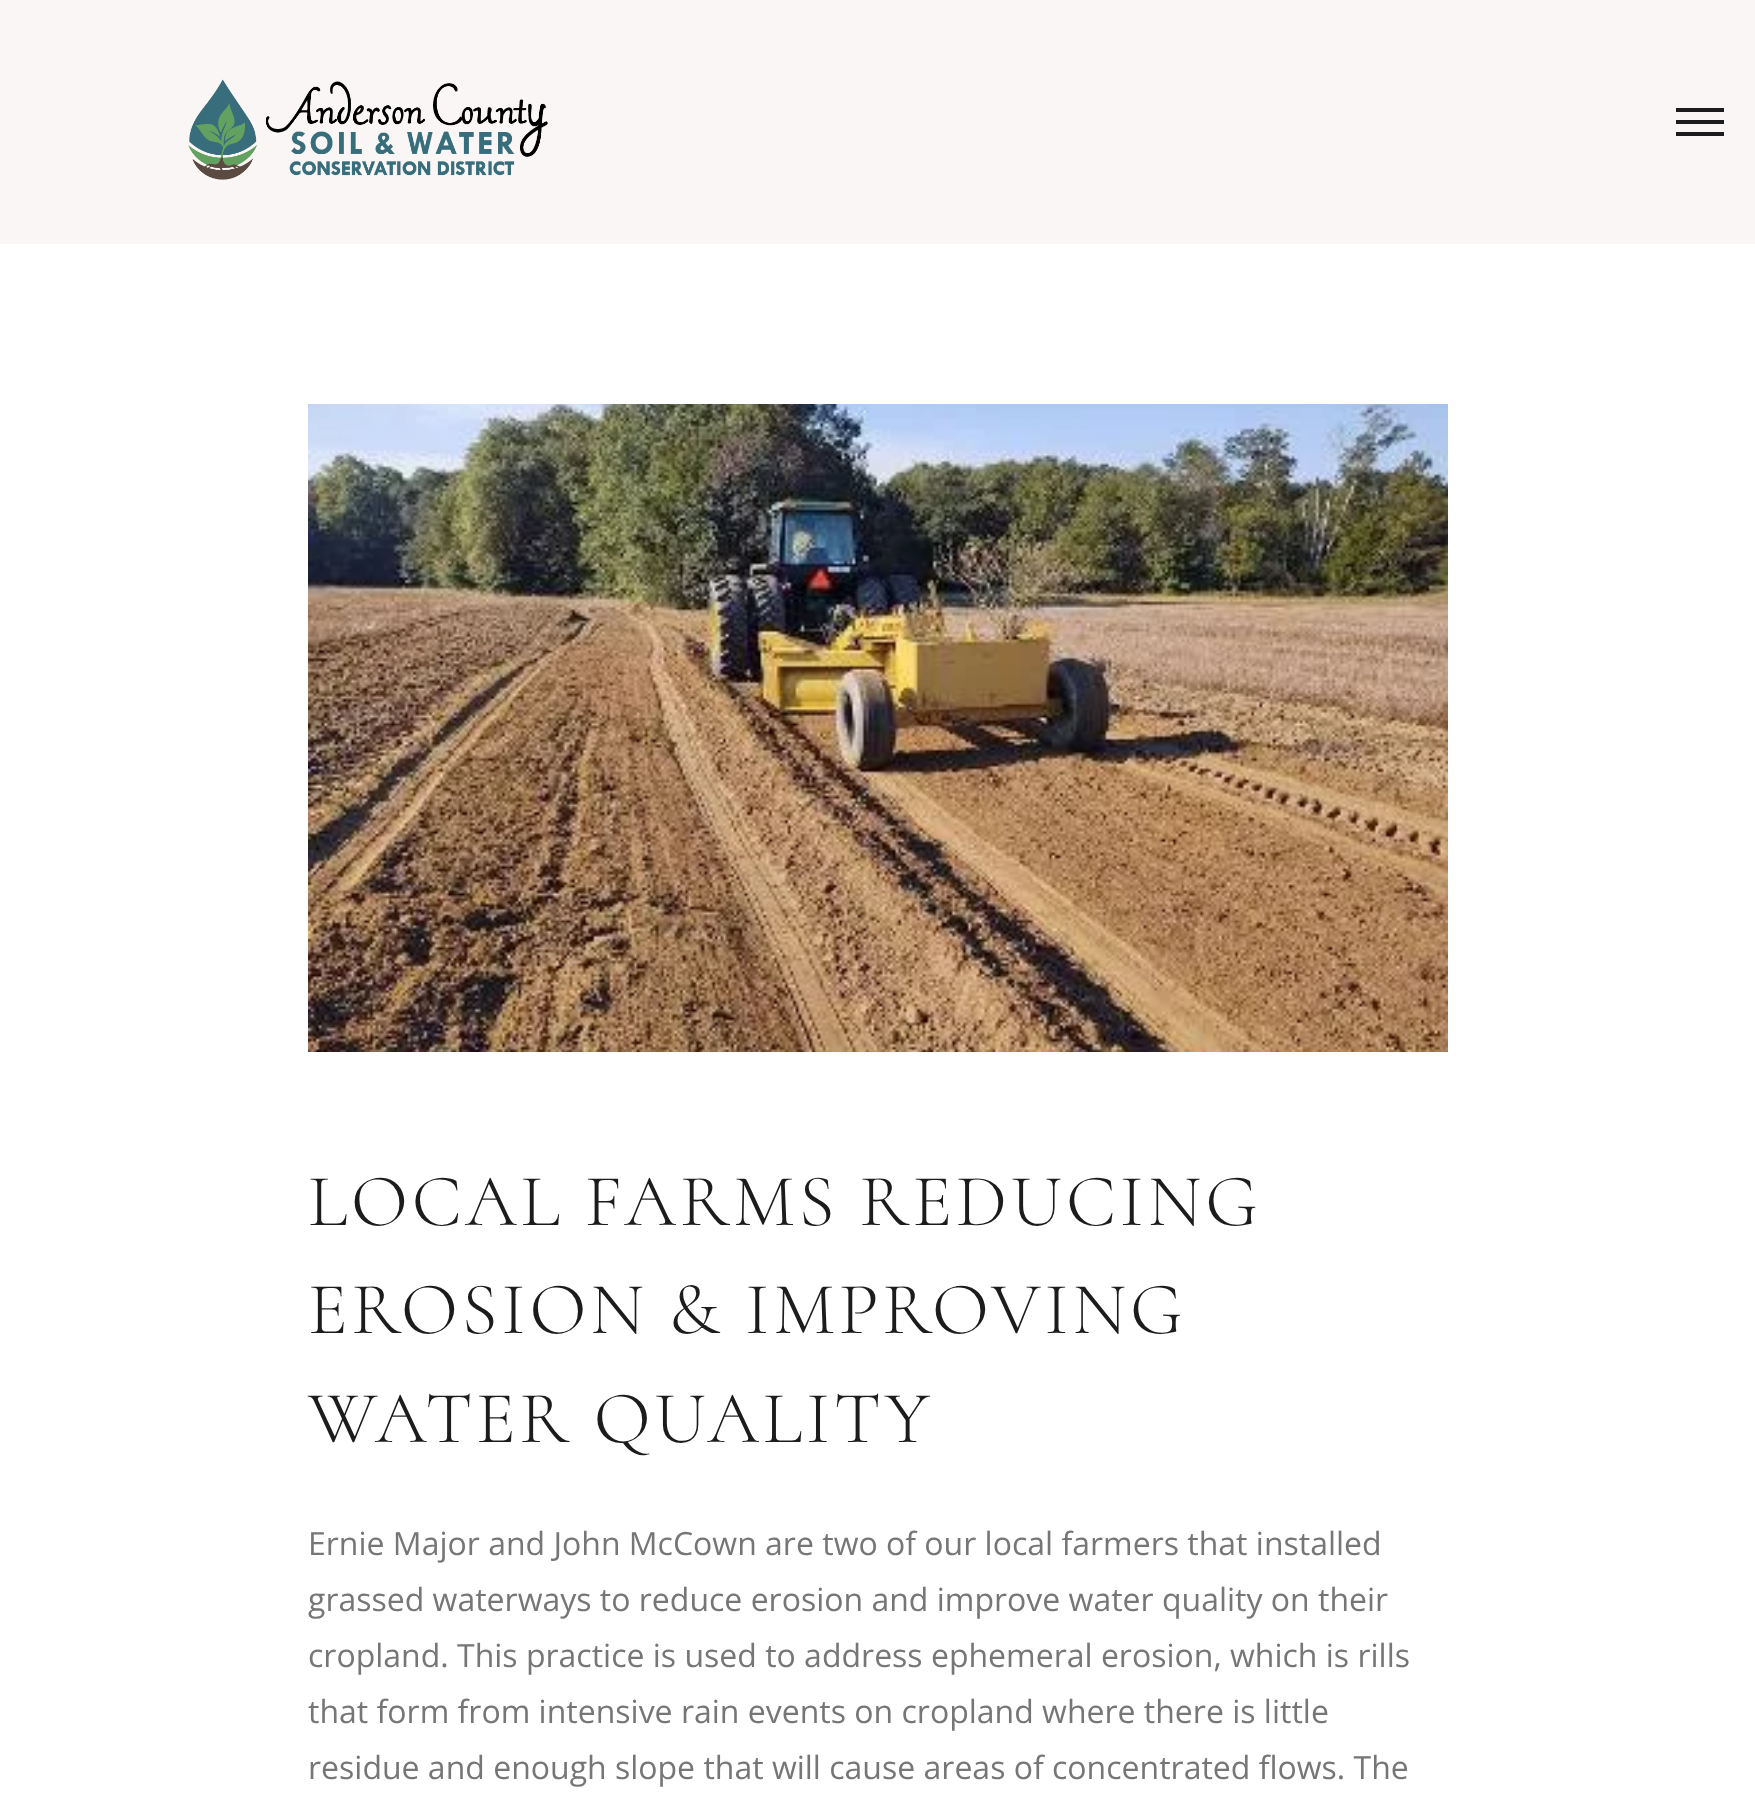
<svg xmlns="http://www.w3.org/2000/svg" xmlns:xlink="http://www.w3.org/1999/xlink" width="1755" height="1810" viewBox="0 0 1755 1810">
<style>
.cls-1{font:300 74.2px Cormorant;letter-spacing:3.75px;fill:#1c1b1d}
.cls-2{font:32px Open Sans;fill:#777677}
</style>
<rect width="100%" height="100%" fill="#ffffff"/>
<rect fill="#faf6f5" x="0" y="0" width="1755" height="244"/>
<image xlink:href="image0.png" x="188" y="79" width="360" height="101"/>
<rect fill="#1c1b1d" x="1676" y="120" width="48" height="4"/>
<rect fill="#1c1b1d" x="1676" y="108" width="48" height="4"/>
<rect fill="#1c1b1d" x="1676" y="132" width="48" height="4"/>
<image xlink:href="image1.png" x="308" y="404" width="1140" height="648"/>
<text class="cls-1"><tspan x="308" y="1225">LOCAL FARMS REDUCING</tspan><tspan x="308" y="1333">EROSION &amp; IMPROVING</tspan><tspan x="308" y="1442">WATER QUALITY</tspan></text>
<text class="cls-2"><tspan x="308" y="1555">Ernie Major and John McCown are two of our local farmers that installed</tspan><tspan x="308" y="1611">grassed waterways to reduce erosion and improve water quality on their</tspan><tspan x="308" y="1667">cropland. This practice is used to address ephemeral erosion, which is rills</tspan><tspan x="308" y="1723">that form from intensive rain events on cropland where there is little</tspan><tspan x="308" y="1779">residue and enough slope that will cause areas of concentrated flows. The</tspan></text>
</svg>
